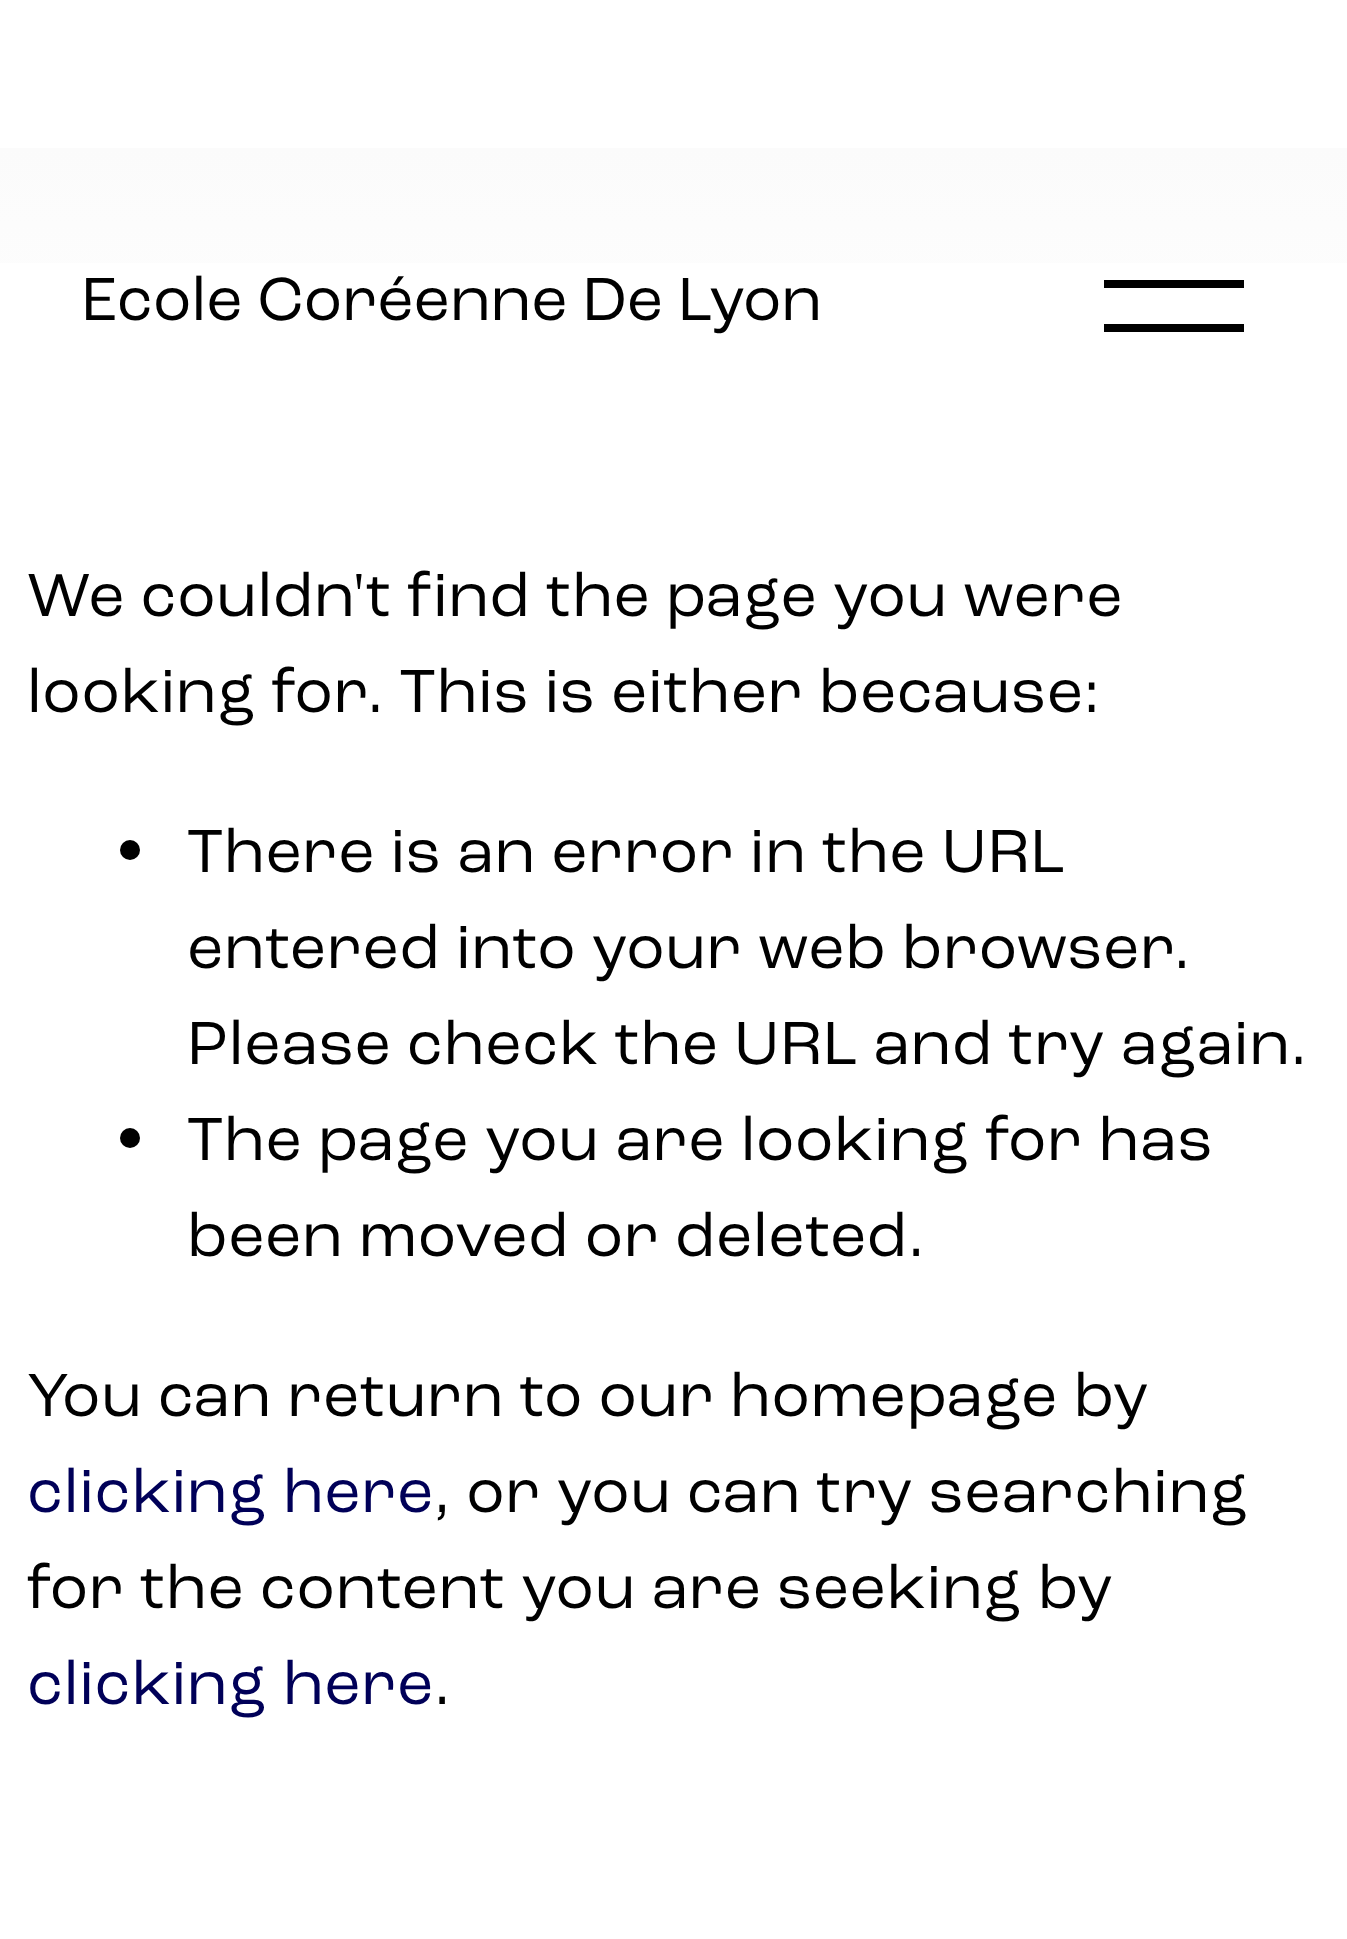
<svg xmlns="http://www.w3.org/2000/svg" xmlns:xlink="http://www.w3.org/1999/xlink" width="1347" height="1939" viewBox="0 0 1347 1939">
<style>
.cls-1{font:64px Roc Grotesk;fill:#000000}
.cls-2{font:64px Roc Grotesk;letter-spacing:0.65px;fill:#000000}
.cls-3{font:64px Roc Grotesk;letter-spacing:0.65px;fill:#000058}
</style>
<defs>
<linearGradient id="g1" gradientUnits="userSpaceOnUse" x1="674" y1="148" x2="674" y2="456"><stop offset="0" stop-color="#fbfbfb"/><stop offset="1" stop-color="#ffffff"/></linearGradient>
</defs>
<rect width="100%" height="100%" fill="#ffffff"/>
<rect fill="url(#g1)" x="0" y="148" width="1347" height="115"/>
<rect fill="#000000" x="1104" y="280" width="140" height="8"/>
<rect fill="#000000" x="1104" y="324" width="140" height="8"/>
<circle fill="#000000" cx="130" cy="850" r="10"/>
<circle fill="#000000" cx="130" cy="1138" r="10"/>
<text class="cls-1" x="81" y="320">Ecole Coréenne De Lyon</text>
<text class="cls-2"><tspan x="27" y="616">We couldn't find the page you were</tspan><tspan x="27" y="712">looking for. This is either because:</tspan></text>
<text class="cls-2"><tspan x="187" y="872">There is an error in the URL</tspan><tspan x="187" y="968">entered into your web browser.</tspan><tspan x="187" y="1064">Please check the URL and try again.</tspan><tspan x="187" y="1160">The page you are looking for has</tspan><tspan x="187" y="1256">been moved or deleted.</tspan></text>
<text class="cls-2" x="27" y="1416">You can return to our homepage by</text>
<text class="cls-3" x="27" y="1512">clicking here</text>
<text class="cls-2" x="434" y="1512">, or you can try searching</text>
<text class="cls-2" x="27" y="1608">for the content you are seeking by</text>
<text class="cls-3" x="27" y="1704">clicking here</text>
<text class="cls-2" x="434" y="1704">.</text>
</svg>
